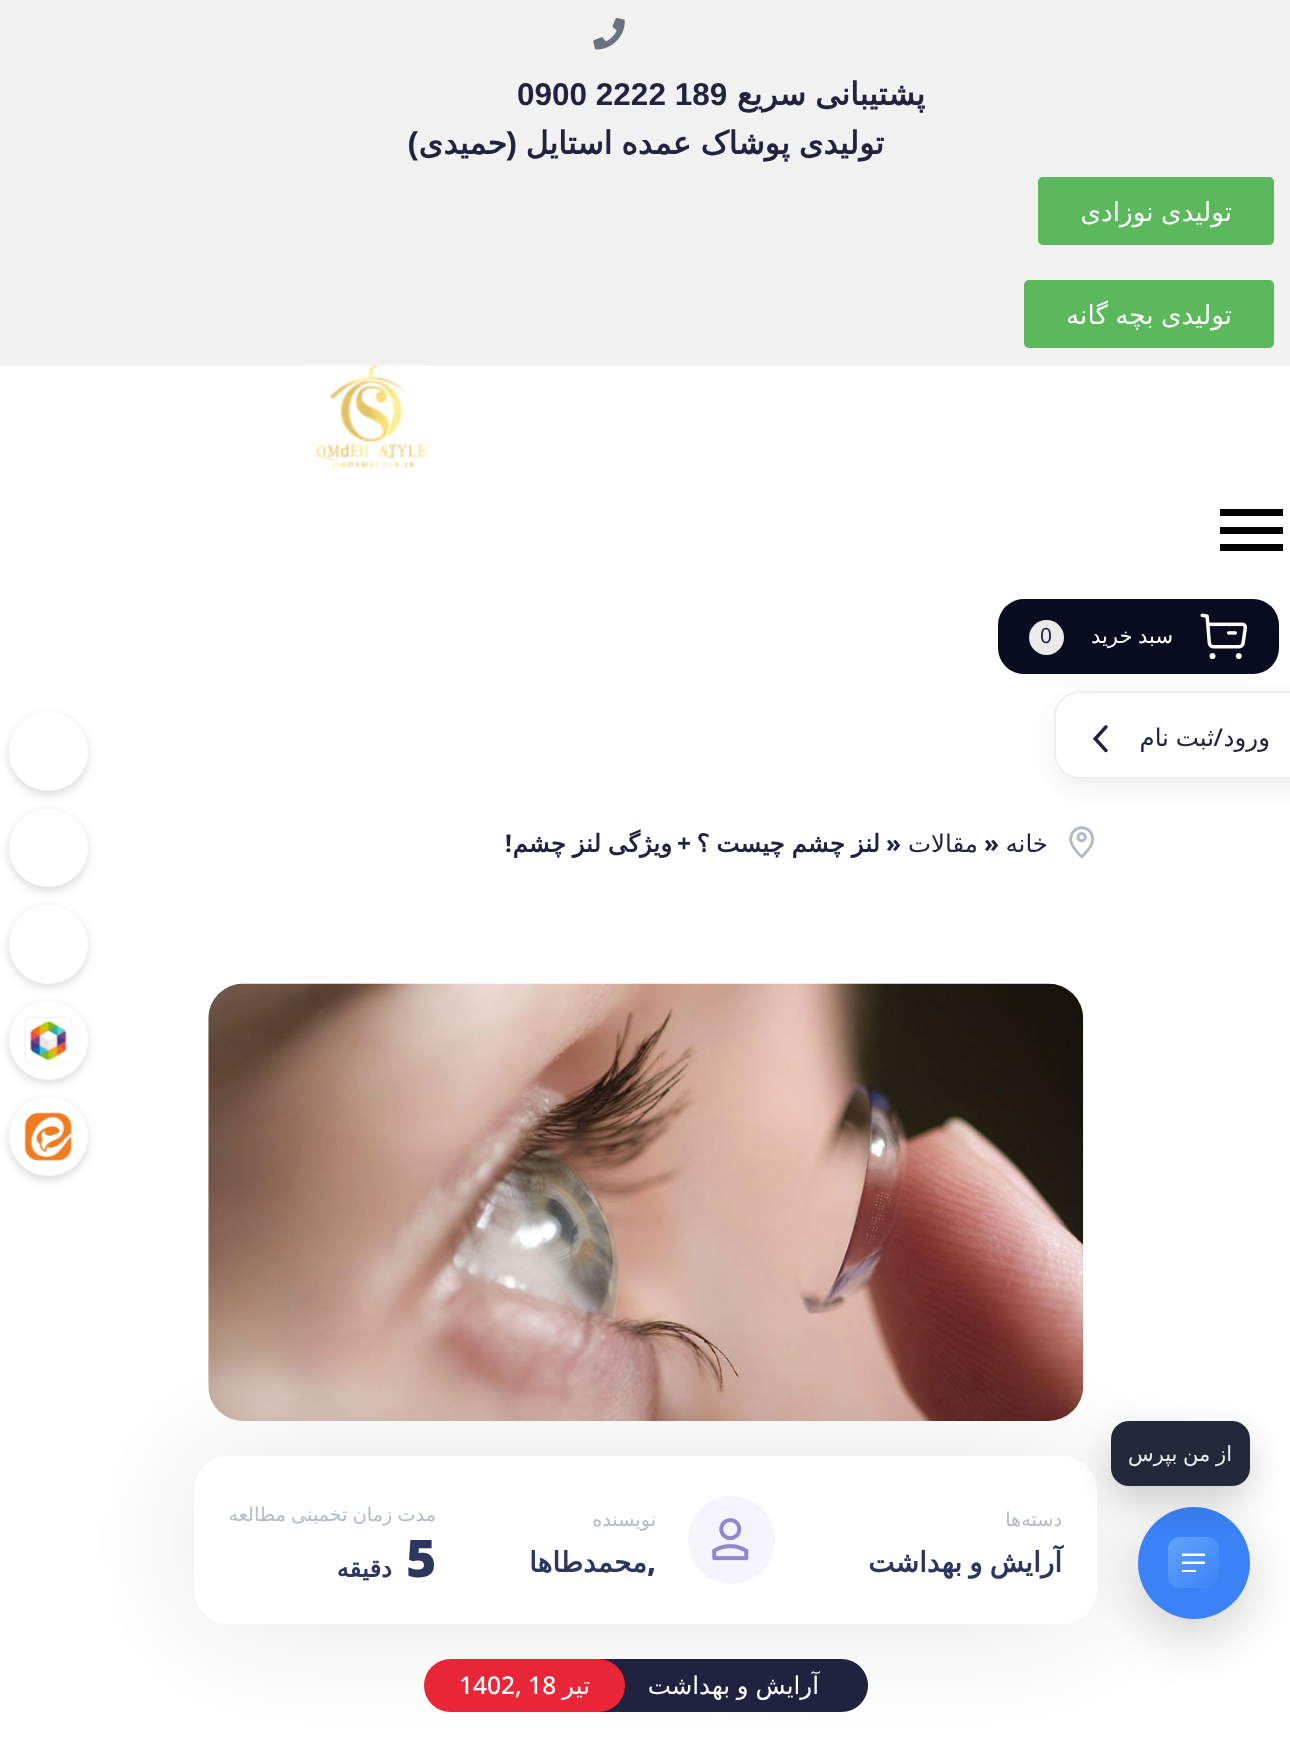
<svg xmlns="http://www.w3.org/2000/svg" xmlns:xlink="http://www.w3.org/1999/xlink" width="1290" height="1758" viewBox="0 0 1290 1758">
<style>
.cls-1{font:bold 31.5px DejaVu Sans;direction:rtl;fill:#212341}
.cls-2{font:bold 31.5px Liberation Sans;fill:#212341}
.cls-3{font:bold 31.5px Liberation Sans;direction:rtl;fill:#212341}
.cls-4{font:26.25px DejaVu Sans;direction:rtl;fill:#ffffff}
.cls-5{font:21px DejaVu Sans;direction:rtl;fill:#ffffff}
.cls-6{font:21px Noto Sans;fill:#212341}
.cls-7{font:24.5px DejaVu Sans;direction:rtl;fill:#212341}
.cls-8{font:500 24.5px Noto Sans;direction:rtl;fill:#212341}
.cls-9{font:21px DejaVu Sans;direction:rtl;fill:#edeeef}
.cls-10{font:bold 24.5px Noto Sans;fill:#212341}
.cls-11{font:bold 24.5px DejaVu Sans;direction:rtl;fill:#212341}
.cls-12{font:bold 24.5px Noto Sans;direction:rtl;fill:#212341}
.cls-13{font:19.25px DejaVu Sans;direction:rtl;fill:#b3bbc7}
.cls-14{font:bold 28px DejaVu Sans;direction:rtl;fill:#2d365d}
.cls-15{font:900 28px Noto Sans;direction:rtl;fill:#2d365d}
.cls-16{font:900 52px Noto Sans;fill:#2d365d}
.cls-17{font:bold 24.5px DejaVu Sans;direction:rtl;fill:#2d365d}
.cls-18{font:24.5px DejaVu Sans;direction:rtl;fill:#ffffff}
.cls-19{font:500 24.5px Noto Sans;fill:#ffffff}
</style>
<defs>
<linearGradient id="g1" gradientUnits="userSpaceOnUse" x1="1168" y1="1537" x2="1219" y2="1588"><stop offset="0" stop-color="#60a5fa"/><stop offset="1" stop-color="#3b82f6"/></linearGradient>
<clipPath id="clip1"><path d="M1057 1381H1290V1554H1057ZM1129 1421H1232C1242 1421 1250 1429 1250 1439V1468C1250 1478 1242 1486 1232 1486H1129C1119 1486 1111 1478 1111 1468V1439C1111 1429 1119 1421 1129 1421Z" clip-rule="evenodd"/></clipPath>
</defs>
<rect width="100%" height="100%" fill="#ffffff"/>
<rect fill="#f1f1f1" x="0" y="0" width="1290" height="366"/>
<image xlink:href="image0.png" x="593" y="18" width="32" height="32"/>
<rect fill="#5cb85c" x="1038" y="177" width="236" height="68" rx="5"/>
<rect fill="#5cb85c" x="1024" y="280" width="250" height="68" rx="5"/>
<image xlink:href="image1.png" x="306" y="365" width="122" height="103"/>
<path fill="#000000" d="M1220 551V544H1283V551ZM1220 534V527H1283V534ZM1220 509H1283V516H1220Z"/>
<rect fill="#090c1f" x="998" y="599" width="281" height="75" rx="26"/>
<image xlink:href="image2.png" x="1200" y="613" width="48" height="47"/>
<circle fill="#eaeaeb" cx="1046.5" cy="637.5" r="17.5"/>
<rect fill="#212341" fill-opacity="0.07" filter="blur(13px)" x="1054" y="700" width="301" height="88" rx="26"/>
<path fill="#ffffff" d="M1080 691H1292V779H1080C1065.5 779 1054 767.5 1054 753V717C1054 702.5 1065.5 691 1080 691Z"/>
<rect fill="none" stroke="#efefef" stroke-width="2" x="1055" y="692" width="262" height="86" rx="25"/>
<image xlink:href="image3.png" x="1093" y="725" width="15" height="28"/>
<image xlink:href="image5.png" x="208" y="983" width="876" height="438"/>
<path fill="#212341" d="M560 1659H841.5C856 1659 868 1671 868 1685.5C868 1700 856 1712 841.5 1712H560Z"/>
<rect fill="#ee273a" x="424" y="1659" width="201" height="53" rx="26.5"/>
<rect fill="#000000" fill-opacity="0.1" filter="blur(65.5px)" x="194" y="1456" width="903" height="168" rx="35"/>
<rect fill="#ffffff" x="194" y="1456" width="903" height="168" rx="35"/>
<rect fill="#000000" fill-opacity="0.18" filter="blur(26px)" x="1138" y="1524" width="112" height="112" rx="56"/>
<circle fill="#3b82f6" cx="1194" cy="1563" r="56"/>
<rect fill="url(#g1)" x="1168" y="1537" width="51" height="51" rx="12"/>
<path fill="#ffffff" d="M1182 1553.5H1205V1556H1182ZM1182 1561.5H1205V1564H1182ZM1182 1570H1196V1572H1182Z"/>
<g clip-path="url(#clip1)">
<rect fill="#000000" fill-opacity="0.18" filter="blur(17.5px)" x="1111" y="1435" width="139" height="65" rx="18"/>
</g>
<rect fill="#0f172a" fill-opacity="0.92" x="1111" y="1421" width="139" height="65" rx="18"/>
<image xlink:href="image4.png" x="1069" y="826" width="25" height="33"/>
<rect fill="#f5f3fc" x="688" y="1496" width="87" height="88" rx="43.5"/>
<image xlink:href="image6.png" x="712" y="1518" width="37" height="43"/>
<rect fill="#000000" fill-opacity="0.15" filter="blur(5px)" x="9" y="716" width="79" height="79" rx="39.5"/>
<circle fill="#ffffff" cx="48.5" cy="751.5" r="39.5"/>
<rect fill="#000000" fill-opacity="0.15" filter="blur(5px)" x="9" y="812" width="79" height="79" rx="39.5"/>
<rect fill="#ffffff" x="9" y="809" width="79" height="78" rx="39"/>
<rect fill="#000000" fill-opacity="0.15" filter="blur(5px)" x="9" y="908" width="79" height="79" rx="39.5"/>
<circle fill="#ffffff" cx="48.5" cy="944.5" r="39.5"/>
<rect fill="#000000" fill-opacity="0.15" filter="blur(5px)" x="9" y="1005" width="79" height="78" rx="39"/>
<circle fill="#ffffff" cx="48.5" cy="1040.5" r="39.5"/>
<image xlink:href="image7.png" x="24" y="1016" width="49" height="49"/>
<rect fill="#000000" fill-opacity="0.15" filter="blur(5px)" x="9" y="1101" width="79" height="79" rx="39.5"/>
<circle fill="#ffffff" cx="48.5" cy="1136.5" r="39.5"/>
<image xlink:href="image8.png" x="24" y="1112" width="48" height="49"/>
<text class="cls-1" x="925" y="105" word-spacing="-1">پشتیبانی سریع</text>
<text class="cls-2" x="517" y="105">0900 2222 189</text>
<text class="cls-1" x="884" y="154" word-spacing="-1">تولیدی پوشاک عمده استایل</text>
<text class="cls-3" x="517" y="154">(</text>
<text class="cls-1" x="507" y="154">حمیدی</text>
<text class="cls-3" x="418" y="154">)</text>
<text class="cls-4" x="1232" y="221" word-spacing="-1">تولیدی نوزادی</text>
<text class="cls-4" x="1232" y="324" word-spacing="-1">تولیدی بچه گانه</text>
<text class="cls-5" x="1173" y="643" word-spacing="-1">سبد خرید</text>
<text class="cls-6" x="1040" y="643">0</text>
<text class="cls-7" x="1270" y="746">ورود</text>
<text class="cls-7" x="1214" y="746" word-spacing="-1">ثبت نام</text>
<text class="cls-8" x="1223" y="746">/</text>
<text class="cls-9" x="1232" y="1461" word-spacing="-1">از من بپرس</text>
<text class="cls-7" x="1048" y="852">خانه</text>
<text class="cls-10" x="984" y="852">»</text>
<text class="cls-7" x="978" y="852">مقالات</text>
<text class="cls-10" x="886" y="852">»</text>
<text class="cls-11" x="880" y="852" word-spacing="-1">لنز چشم چیست ؟</text>
<text class="cls-12" x="691" y="852">+</text>
<text class="cls-11" x="672" y="852" word-spacing="-1">ویژگی لنز چشم</text>
<text class="cls-12" x="512" y="852">!</text>
<text class="cls-13" x="1062" y="1526">دسته‌ها</text>
<text class="cls-14" x="1062" y="1572" word-spacing="-2">آرایش و بهداشت</text>
<text class="cls-13" x="656" y="1526">نویسنده</text>
<text class="cls-15" x="656" y="1572">,</text>
<text class="cls-14" x="647" y="1572">محمدطاها</text>
<text class="cls-13" x="436" y="1521" word-spacing="-1">مدت زمان تخمینی مطالعه</text>
<text class="cls-16" x="406" y="1577">5</text>
<text class="cls-17" x="392" y="1577">دقیقه</text>
<text class="cls-18" x="819" y="1694" word-spacing="-1">آرایش و بهداشت</text>
<text class="cls-18" x="590" y="1694">تیر</text>
<text class="cls-19" x="459" y="1694">1402, 18</text>
</svg>
